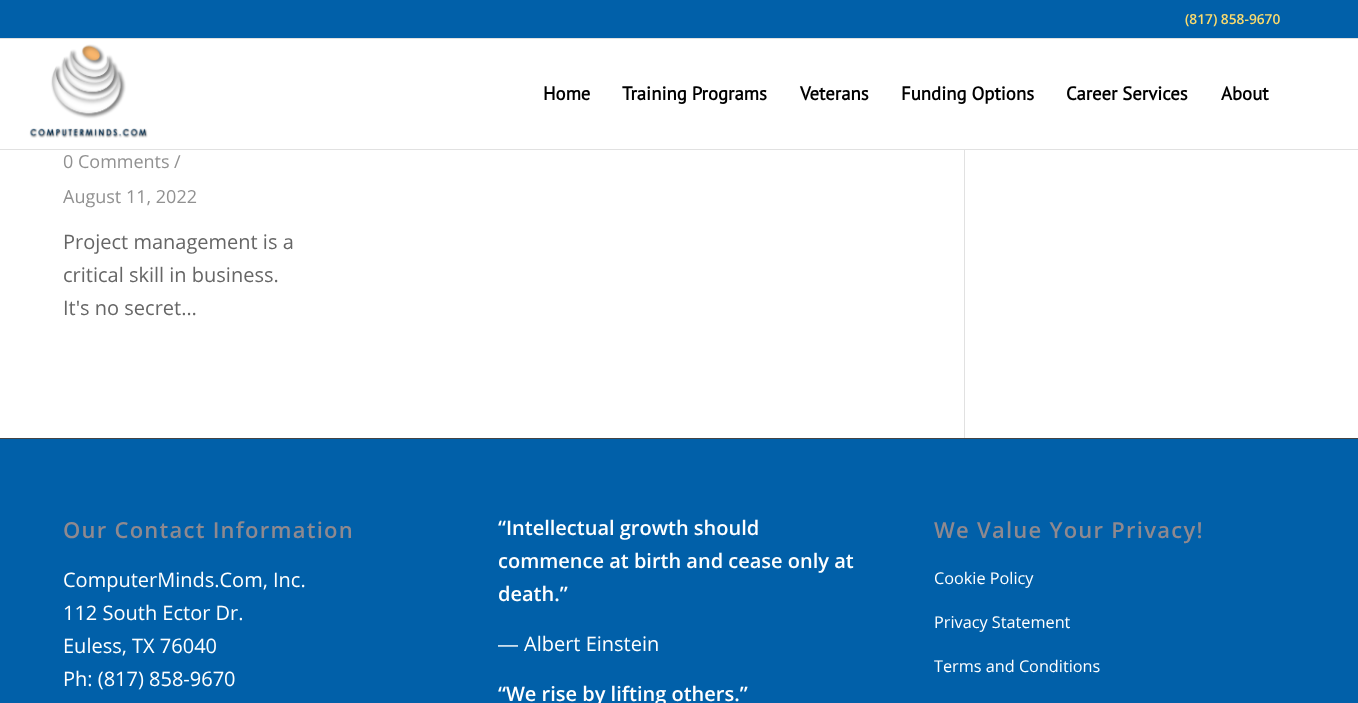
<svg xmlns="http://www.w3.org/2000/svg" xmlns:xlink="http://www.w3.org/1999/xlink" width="1358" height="703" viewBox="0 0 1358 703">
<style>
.cls-1{font:600 13.75px Open Sans;fill:#fcdb6d}
.cls-2{font:bold 18.75px PT Sans;fill:#000000}
.cls-3{font:18px Open Sans;fill:#919191}
.cls-4{font:20px Open Sans;fill:#666666}
.cls-5{font:600 22px Open Sans;letter-spacing:1.25px;fill:#8f898f}
.cls-6{font:20px Open Sans;fill:#ffffff}
.cls-7{font:600 20px Open Sans;fill:#ffffff}
.cls-8{font:20px Liberation Sans;fill:#ffffff}
.cls-9{font:16.25px Open Sans;fill:#ffffff}
</style>
<rect width="100%" height="100%" fill="#ffffff"/>
<rect fill="#0160a9" x="0" y="0" width="1358" height="38"/>
<rect fill="#e1e1e1" x="0" y="38" width="1358" height="1"/>
<rect fill="#e1e1e1" x="0" y="149" width="1358" height="1"/>
<image xlink:href="image0.png" x="29" y="44" width="119" height="94"/>
<rect fill="#e1e1e1" x="964" y="150" width="1" height="288"/>
<rect fill="#0160a9" x="0" y="439" width="1358" height="264"/>
<rect fill="#444444" x="0" y="438" width="1358" height="1"/>
<text class="cls-1" x="1185" y="24">(817) 858-9670</text>
<text class="cls-2" x="543" y="100">Home</text>
<text class="cls-2" x="622" y="100">Training Programs</text>
<text class="cls-2" x="800" y="100">Veterans</text>
<text class="cls-2" x="901" y="100">Funding Options</text>
<text class="cls-2" x="1066" y="100">Career Services</text>
<text class="cls-2" x="1221" y="100">About</text>
<text class="cls-3" x="63" y="168">0 Comments</text>
<text class="cls-3" x="174" y="168">/</text>
<text class="cls-3" x="63" y="203">August 11, 2022</text>
<text class="cls-4"><tspan x="63" y="249">Project management is a</tspan><tspan x="63" y="282">critical skill in business.</tspan><tspan x="63" y="315">It's no secret…</tspan></text>
<text class="cls-5" x="63" y="538">Our Contact Information</text>
<text class="cls-6"><tspan x="63" y="587">ComputerMinds.Com, Inc.</tspan><tspan x="63" y="620">112 South Ector Dr.</tspan><tspan x="63" y="653">Euless, TX 76040</tspan><tspan x="63" y="686">Ph: (817) 858-9670</tspan></text>
<text class="cls-7"><tspan x="498" y="535">“Intellectual growth should</tspan><tspan x="498" y="568">commence at birth and cease only at</tspan><tspan x="498" y="601">death.”</tspan></text>
<text class="cls-8" x="498" y="651">―</text>
<text class="cls-6" x="524" y="651">Albert Einstein</text>
<text class="cls-7" x="498" y="701">“We rise by lifting others.”</text>
<text class="cls-5" x="934" y="538">We Value Your Privacy!</text>
<text class="cls-9" x="934" y="584">Cookie Policy</text>
<text class="cls-9" x="934" y="628">Privacy Statement</text>
<text class="cls-9" x="934" y="672">Terms and Conditions</text>
</svg>
